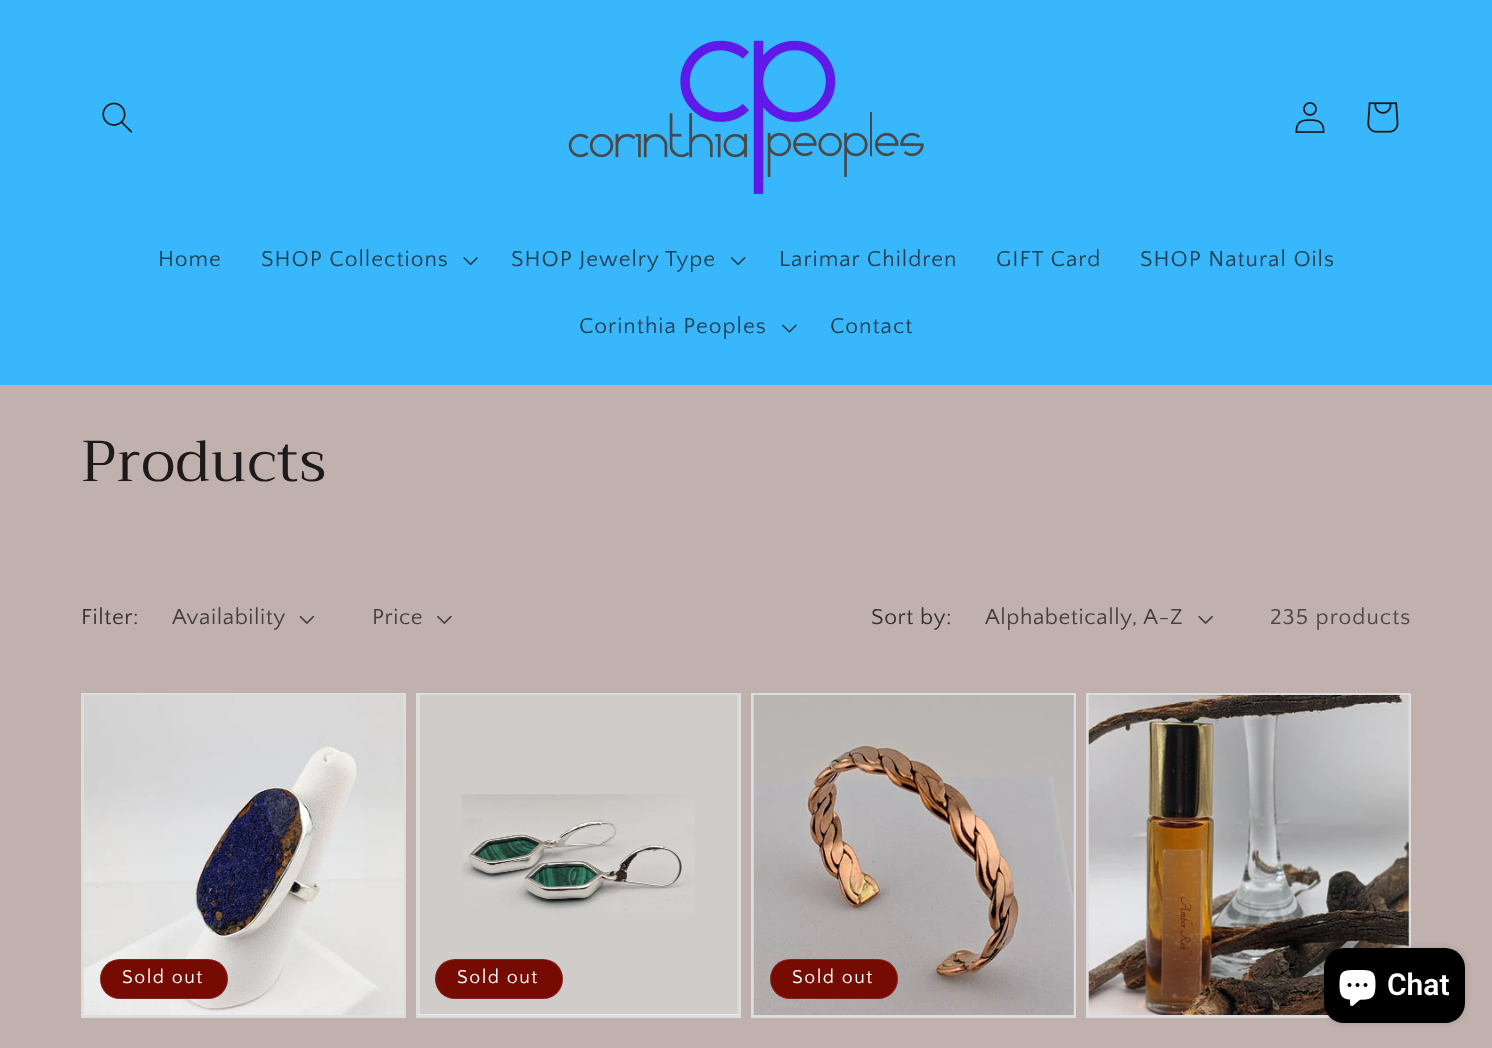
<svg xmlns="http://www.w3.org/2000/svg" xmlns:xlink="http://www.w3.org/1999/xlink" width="1492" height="1048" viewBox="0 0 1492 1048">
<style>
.cls-1{font:22.75px Quattrocento Sans;letter-spacing:1px;fill:#234153}
.cls-2{font:57.5px Trirong;letter-spacing:0.75px;fill:#1c1a1a}
.cls-3{font:22.75px Quattrocento Sans;letter-spacing:0.6px;fill:#353130}
.cls-4{font:22.75px Quattrocento Sans;letter-spacing:0.6px;fill:#45403f}
.cls-5{font:22.75px Quattrocento Sans;letter-spacing:1px;fill:#4d4747}
.cls-6{font:19.5px Quattrocento Sans;letter-spacing:1.5px;fill:#ffffff}
.cls-7{font:600 30px Roboto;fill:#ffffff}
</style>
<rect width="100%" height="100%" fill="#c0b1af"/>
<rect fill="#39b7fd" x="0" y="0" width="1492" height="385"/>
<image xlink:href="image0.png" x="102" y="102" width="31" height="31"/>
<image xlink:href="image1.png" x="568" y="40" width="356" height="154"/>
<image xlink:href="image2.png" x="1295" y="102" width="30" height="31"/>
<image xlink:href="image3.png" x="1367" y="102" width="32" height="31"/>
<image xlink:href="image4.png" x="463" y="257" width="15" height="9"/>
<image xlink:href="image5.png" x="730" y="257" width="16" height="9"/>
<image xlink:href="image6.png" x="782" y="324" width="15" height="9"/>
<image xlink:href="image7.png" x="299" y="615" width="16" height="9"/>
<image xlink:href="image8.png" x="437" y="615" width="15" height="9"/>
<image xlink:href="image9.png" x="1198" y="615" width="15" height="9"/>
<rect fill="none" stroke="#dddddd" stroke-width="3" x="82.5" y="694.5" width="322" height="322"/>
<image xlink:href="image10.png" x="83" y="695" width="321" height="320"/>
<rect fill="#760b03" x="100" y="959" width="128" height="40" rx="20"/>
<rect fill="none" stroke="#ffffff" stroke-opacity="0.1" x="100.5" y="959.5" width="127" height="39" rx="19.5"/>
<rect fill="#f3f3f3" stroke="#dddddd" stroke-width="3" x="417.5" y="694.5" width="322" height="322"/>
<image xlink:href="image11.png" x="419" y="695" width="319" height="320"/>
<rect fill="#760b03" x="435" y="959" width="128" height="40" rx="20"/>
<rect fill="none" stroke="#ffffff" stroke-opacity="0.1" x="435.5" y="959.5" width="127" height="39" rx="19.5"/>
<rect fill="none" stroke="#dddddd" stroke-width="3" x="752.5" y="694.5" width="322" height="322"/>
<image xlink:href="image12.png" x="753" y="695" width="321" height="320"/>
<rect fill="#760b03" x="770" y="959" width="128" height="40" rx="20"/>
<rect fill="none" stroke="#ffffff" stroke-opacity="0.1" x="770.5" y="959.5" width="127" height="39" rx="19.5"/>
<rect fill="none" stroke="#dddddd" stroke-width="3" x="1087.5" y="694.5" width="322" height="322"/>
<image xlink:href="image13.png" x="1088" y="695" width="321" height="320"/>
<rect fill="#000000" fill-opacity="0.15" filter="blur(3px)" x="1324" y="948" width="141" height="75" rx="20"/>
<rect fill="#000000" x="1324" y="948" width="141" height="75" rx="20"/>
<image xlink:href="image14.png" x="1339" y="970" width="37" height="36"/>
<text class="cls-1" x="158" y="266">Home</text>
<text class="cls-1" x="261" y="266">SHOP Collections</text>
<text class="cls-1" x="511" y="266">SHOP Jewelry Type</text>
<text class="cls-1" x="779" y="266">Larimar Children</text>
<text class="cls-1" x="996" y="266">GIFT Card</text>
<text class="cls-1" x="1140" y="266">SHOP Natural Oils</text>
<text class="cls-1" x="579" y="333">Corinthia Peoples</text>
<text class="cls-1" x="830" y="333">Contact</text>
<text class="cls-2" x="81" y="481">Products</text>
<text class="cls-3" x="81" y="624">Filter:</text>
<text class="cls-4" x="172" y="624">Availability</text>
<text class="cls-4" x="372" y="624">Price</text>
<text class="cls-3" x="871" y="624">Sort by:</text>
<text class="cls-4" x="985" y="624">Alphabetically, A-Z</text>
<text class="cls-5" x="1270" y="624">235 products</text>
<text class="cls-6" x="122" y="983">Sold out</text>
<text class="cls-6" x="457" y="983">Sold out</text>
<text class="cls-6" x="792" y="983">Sold out</text>
<text class="cls-7" x="1387" y="995">Chat</text>
</svg>
